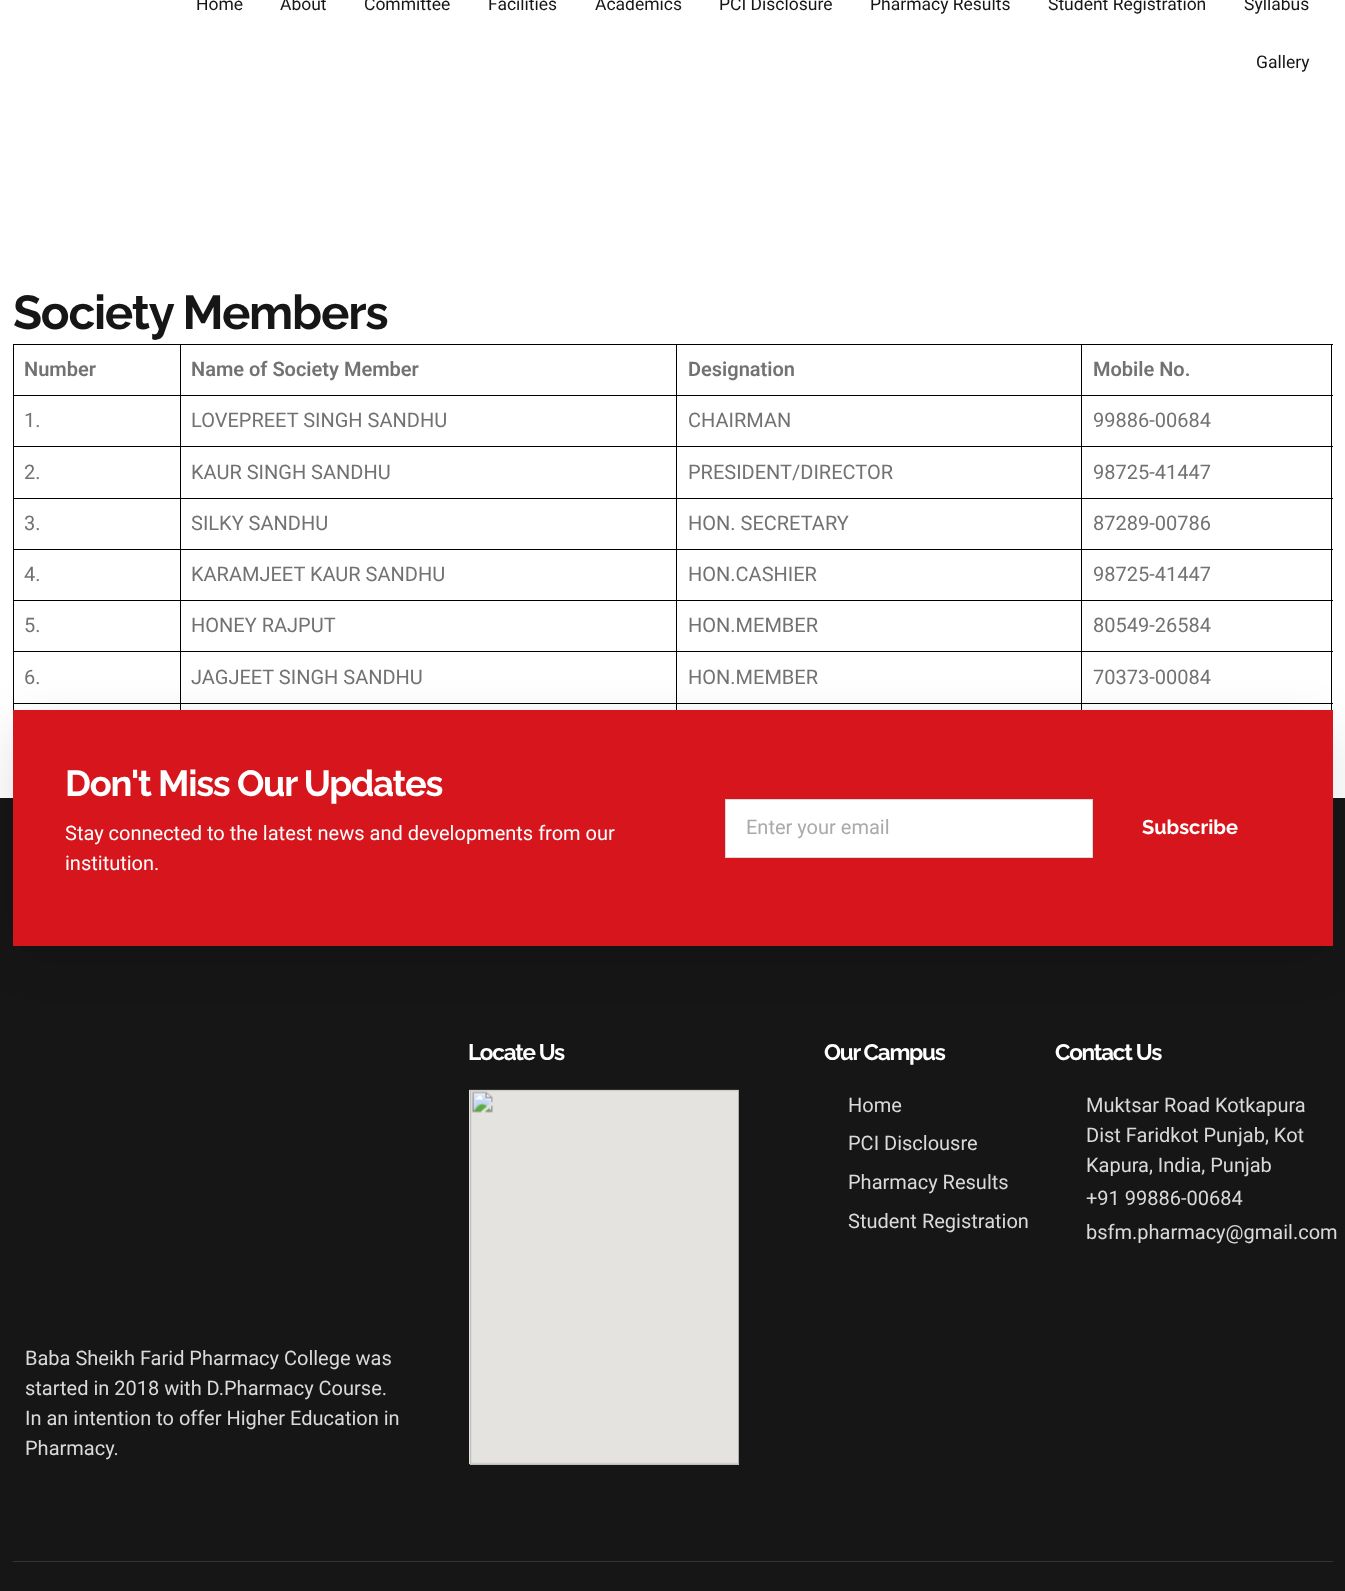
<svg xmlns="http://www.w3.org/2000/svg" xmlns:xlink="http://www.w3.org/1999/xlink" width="1345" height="1591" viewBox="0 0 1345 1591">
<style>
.cls-1{font:17.5px Roboto;fill:#161616}
.cls-2{font:bold 47.5px Raleway;letter-spacing:-1.25px;fill:#161616}
.cls-3{font:600 20px Roboto;fill:#727272}
.cls-4{font:20px Roboto;fill:#727272}
.cls-5{font:bold 36.25px Raleway;letter-spacing:-1.25px;fill:#ffffff}
.cls-6{font:20px Roboto;fill:#ffffff}
.cls-7{font:20px Roboto;fill:#aaaaaa}
.cls-8{font:bold 20px Raleway;fill:#ffffff}
.cls-9{font:bold 22.5px Raleway;letter-spacing:-1.25px;fill:#ffffff}
.cls-10{font:20px Roboto;fill:#dadada}
</style>
<rect width="100%" height="100%" fill="#ffffff"/>
<rect fill="#000000" x="13" y="344" width="1320" height="1"/>
<rect fill="#000000" x="1331" y="344" width="1" height="366"/>
<rect fill="#000000" x="13" y="344" width="1" height="366"/>
<rect fill="#000000" x="1081" y="395" width="252" height="1"/>
<rect fill="#000000" x="1081" y="446" width="252" height="1"/>
<rect fill="#000000" x="1081" y="498" width="252" height="1"/>
<rect fill="#000000" x="1081" y="549" width="252" height="1"/>
<rect fill="#000000" x="1081" y="600" width="252" height="1"/>
<rect fill="#000000" x="1081" y="651" width="252" height="1"/>
<rect fill="#000000" x="1081" y="703" width="252" height="1"/>
<rect fill="#000000" x="1081" y="703" width="1" height="7"/>
<rect fill="#000000" x="676" y="703" width="407" height="1"/>
<rect fill="#000000" x="1081" y="651" width="1" height="53"/>
<rect fill="#000000" x="676" y="651" width="407" height="1"/>
<rect fill="#000000" x="1081" y="600" width="1" height="53"/>
<rect fill="#000000" x="676" y="600" width="407" height="1"/>
<rect fill="#000000" x="1081" y="549" width="1" height="52"/>
<rect fill="#000000" x="676" y="549" width="407" height="1"/>
<rect fill="#000000" x="1081" y="498" width="1" height="52"/>
<rect fill="#000000" x="676" y="498" width="407" height="1"/>
<rect fill="#000000" x="1081" y="446" width="1" height="53"/>
<rect fill="#000000" x="676" y="446" width="407" height="1"/>
<rect fill="#000000" x="1081" y="395" width="1" height="53"/>
<rect fill="#000000" x="676" y="395" width="407" height="1"/>
<rect fill="#000000" x="676" y="703" width="1" height="7"/>
<rect fill="#000000" x="180" y="703" width="498" height="1"/>
<rect fill="#000000" x="676" y="651" width="1" height="53"/>
<rect fill="#000000" x="180" y="651" width="498" height="1"/>
<rect fill="#000000" x="676" y="600" width="1" height="53"/>
<rect fill="#000000" x="180" y="600" width="498" height="1"/>
<rect fill="#000000" x="676" y="549" width="1" height="52"/>
<rect fill="#000000" x="180" y="549" width="498" height="1"/>
<rect fill="#000000" x="676" y="498" width="1" height="52"/>
<rect fill="#000000" x="180" y="498" width="498" height="1"/>
<rect fill="#000000" x="676" y="446" width="1" height="53"/>
<rect fill="#000000" x="180" y="446" width="498" height="1"/>
<rect fill="#000000" x="676" y="395" width="1" height="53"/>
<rect fill="#000000" x="180" y="395" width="498" height="1"/>
<rect fill="#000000" x="180" y="703" width="1" height="7"/>
<rect fill="#000000" x="13" y="703" width="168" height="1"/>
<rect fill="#000000" x="180" y="651" width="1" height="53"/>
<rect fill="#000000" x="13" y="651" width="168" height="1"/>
<rect fill="#000000" x="180" y="600" width="1" height="53"/>
<rect fill="#000000" x="13" y="600" width="168" height="1"/>
<rect fill="#000000" x="180" y="549" width="1" height="52"/>
<rect fill="#000000" x="13" y="549" width="168" height="1"/>
<rect fill="#000000" x="180" y="498" width="1" height="52"/>
<rect fill="#000000" x="13" y="498" width="168" height="1"/>
<rect fill="#000000" x="180" y="446" width="1" height="53"/>
<rect fill="#000000" x="13" y="446" width="168" height="1"/>
<rect fill="#000000" x="180" y="395" width="1" height="53"/>
<rect fill="#000000" x="13" y="395" width="168" height="1"/>
<rect fill="#000000" x="180" y="344" width="1" height="52"/>
<rect fill="#000000" x="676" y="344" width="1" height="52"/>
<rect fill="#000000" x="1081" y="344" width="1" height="52"/>
<rect fill="#161616" x="0" y="798" width="1345" height="793"/>
<rect fill="#000000" fill-opacity="0.15" filter="blur(25px)" x="19" y="729" width="1307" height="224"/>
<rect fill="#d6161c" x="13" y="710" width="1320" height="236"/>
<rect fill="#ffffff" stroke="#dadada" x="725.5" y="799.5" width="367" height="58"/>
<image xlink:href="image0.png" x="469" y="1089" width="270" height="376"/>
<rect fill="#343434" x="13" y="1561" width="1320" height="1"/>
<text class="cls-1" x="196" y="10">Home</text>
<text class="cls-1" x="280" y="10">About</text>
<text class="cls-1" x="364" y="10">Committee</text>
<text class="cls-1" x="488" y="10">Facilities</text>
<text class="cls-1" x="595" y="10">Academics</text>
<text class="cls-1" x="719" y="10">PCI Disclosure</text>
<text class="cls-1" x="870" y="10">Pharmacy Results</text>
<text class="cls-1" x="1048" y="10">Student Registration</text>
<text class="cls-1" x="1244" y="10">Syllabus</text>
<text class="cls-1" x="1256" y="68">Gallery</text>
<text class="cls-2" x="13" y="329">Society Members</text>
<text class="cls-3" x="24" y="376">Number</text>
<text class="cls-3" x="191" y="376">Name of Society Member</text>
<text class="cls-3" x="688" y="376">Designation</text>
<text class="cls-3" x="1093" y="376">Mobile No.</text>
<text class="cls-4" x="24" y="427">1.</text>
<text class="cls-4" x="191" y="427">LOVEPREET SINGH SANDHU</text>
<text class="cls-4" x="688" y="427">CHAIRMAN</text>
<text class="cls-4" x="1093" y="427">99886-00684</text>
<text class="cls-4" x="24" y="479">2.</text>
<text class="cls-4" x="191" y="479">KAUR SINGH SANDHU</text>
<text class="cls-4" x="688" y="479">PRESIDENT/DIRECTOR</text>
<text class="cls-4" x="1093" y="479">98725-41447</text>
<text class="cls-4" x="24" y="530">3.</text>
<text class="cls-4" x="191" y="530">SILKY SANDHU</text>
<text class="cls-4" x="688" y="530">HON. SECRETARY</text>
<text class="cls-4" x="1093" y="530">87289-00786</text>
<text class="cls-4" x="24" y="581">4.</text>
<text class="cls-4" x="191" y="581">KARAMJEET KAUR SANDHU</text>
<text class="cls-4" x="688" y="581">HON.CASHIER</text>
<text class="cls-4" x="1093" y="581">98725-41447</text>
<text class="cls-4" x="24" y="632">5.</text>
<text class="cls-4" x="191" y="632">HONEY RAJPUT</text>
<text class="cls-4" x="688" y="632">HON.MEMBER</text>
<text class="cls-4" x="1093" y="632">80549-26584</text>
<text class="cls-4" x="24" y="684">6.</text>
<text class="cls-4" x="191" y="684">JAGJEET SINGH SANDHU</text>
<text class="cls-4" x="688" y="684">HON.MEMBER</text>
<text class="cls-4" x="1093" y="684">70373-00084</text>
<text class="cls-5" x="65" y="796">Don't Miss Our Updates</text>
<text class="cls-6"><tspan x="65" y="840">Stay connected to the latest news and developments from our</tspan><tspan x="65" y="870">institution.</tspan></text>
<text class="cls-7" x="746" y="834">Enter your email</text>
<text class="cls-8" x="1142" y="834">Subscribe</text>
<text class="cls-9" x="468" y="1060">Locate Us</text>
<text class="cls-9" x="824" y="1060">Our Campus</text>
<text class="cls-10"><tspan x="848" y="1112">Home</tspan><tspan x="848" y="1150">PCI Disclousre</tspan><tspan x="848" y="1189">Pharmacy Results</tspan><tspan x="848" y="1228">Student Registration</tspan></text>
<text class="cls-9" x="1055" y="1060">Contact Us</text>
<text class="cls-10"><tspan x="1086" y="1112">Muktsar Road Kotkapura</tspan><tspan x="1086" y="1142">Dist Faridkot Punjab, Kot</tspan><tspan x="1086" y="1172">Kapura, India, Punjab</tspan><tspan x="1086" y="1205">+91 99886-00684</tspan><tspan x="1086" y="1239">bsfm.pharmacy@gmail.com</tspan></text>
<text class="cls-10"><tspan x="25" y="1365">Baba Sheikh Farid Pharmacy College was</tspan><tspan x="25" y="1395">started in 2018 with D.Pharmacy Course.</tspan><tspan x="25" y="1425">In an intention to offer Higher Education in</tspan><tspan x="25" y="1455">Pharmacy.</tspan></text>
</svg>
